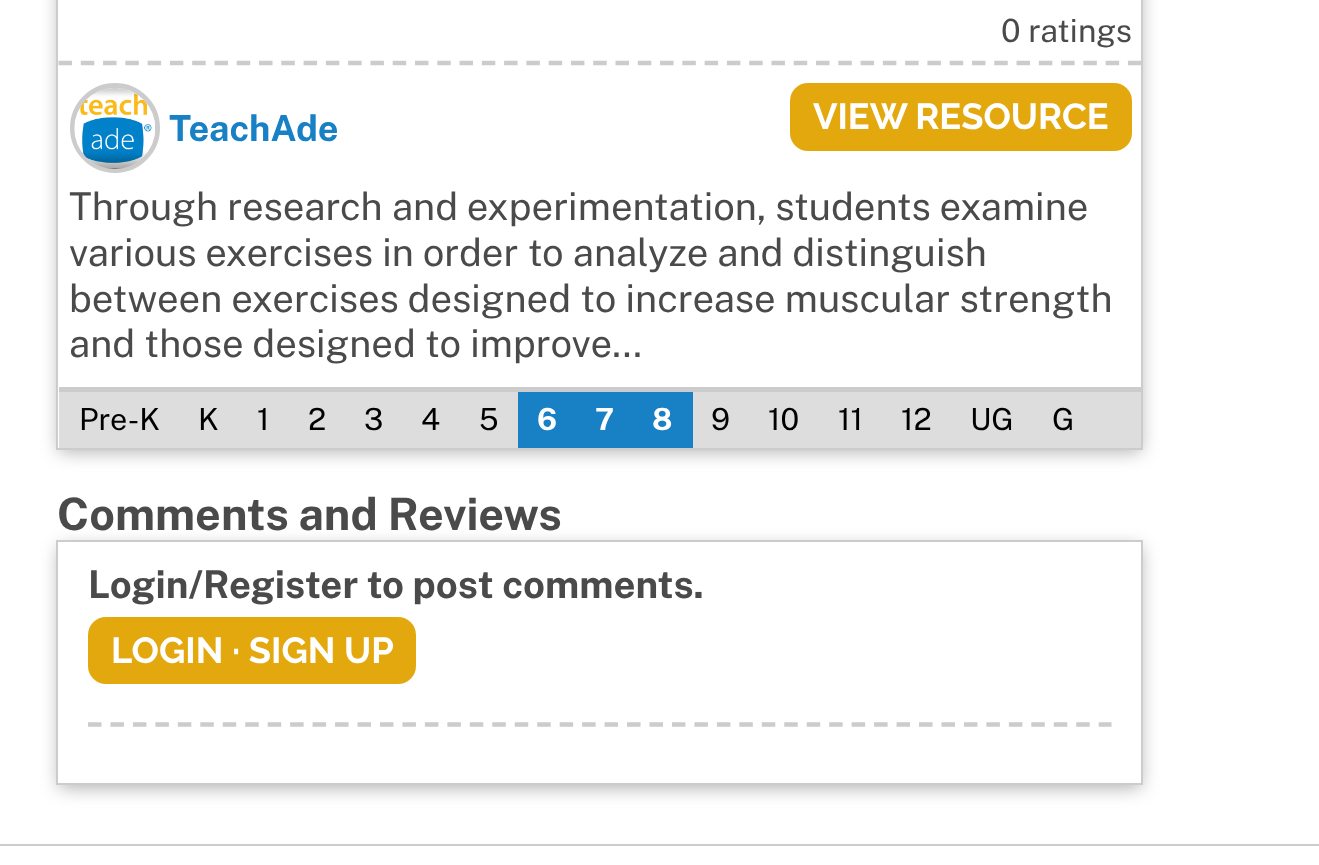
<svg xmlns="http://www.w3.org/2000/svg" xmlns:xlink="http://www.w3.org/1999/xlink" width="1319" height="865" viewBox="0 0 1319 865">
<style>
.cls-1{font:32px Public Sans;fill:#4a4a4a}
.cls-2{font:bold 36px Public Sans;fill:#1880c4}
.cls-3{font:bold 36.25px Raleway;fill:#ffffff}
.cls-4{font:38.25px Public Sans;fill:#4a4a4a}
.cls-5{font:30.5px Public Sans;fill:#000000}
.cls-6{font:bold 30.5px Public Sans;fill:#ffffff}
.cls-7{font:bold 44.75px Public Sans;fill:#4a4a4a}
.cls-8{font:bold 38.25px Public Sans;fill:#4a4a4a}
</style>
<rect width="100%" height="100%" fill="#ffffff"/>
<rect fill="#000000" fill-opacity="0.3" filter="blur(9px)" x="59" y="-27" width="1082" height="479"/>
<rect fill="#ffffff" stroke="#cccccc" stroke-width="2" x="57" y="-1" width="1085" height="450"/>
<path fill="none" stroke="#cccccc" stroke-width="4.5" stroke-dasharray="13.5 8.78" d="M58.5 63H1141"/>
<circle fill="none" stroke="#cccccc" stroke-width="5" cx="115" cy="128" r="42.5"/>
<image xlink:href="image0.png" x="74" y="88" width="81" height="81"/>
<rect fill="#e4a80f" x="790" y="83" width="342" height="68" rx="18"/>
<rect fill="#dddddd" x="59" y="392" width="1082" height="56"/>
<rect fill="#cccccc" x="59" y="387" width="1082" height="5"/>
<rect fill="#1880c4" x="518" y="392" width="175" height="56"/>
<rect fill="#000000" fill-opacity="0.3" filter="blur(9px)" x="59" y="547" width="1082" height="241"/>
<rect fill="#ffffff" stroke="#cccccc" stroke-width="2" x="57" y="541" width="1085" height="243"/>
<rect fill="#e4a80f" x="88" y="617" width="328" height="67" rx="18"/>
<path fill="none" stroke="#cccccc" stroke-width="4.5" stroke-dasharray="13.5 8.96" d="M88 724.5H1111.5"/>
<rect fill="#cccccc" x="0" y="844" width="1319" height="2"/>
<text class="cls-1" x="1001" y="42">0 ratings</text>
<text class="cls-2" x="169" y="141">TeachAde</text>
<text class="cls-3" x="813" y="129">VIEW RESOURCE</text>
<text class="cls-4"><tspan x="69" y="220">Through research and experimentation, students examine</tspan><tspan x="69" y="266">various exercises in order to analyze and distinguish</tspan><tspan x="69" y="312">between exercises designed to increase muscular strength</tspan><tspan x="69" y="357">and those designed to improve...</tspan></text>
<text class="cls-5" x="79" y="430">Pre-K</text>
<text class="cls-5" x="198" y="430">K</text>
<text class="cls-5" x="257" y="430">1</text>
<text class="cls-5" x="308" y="430">2</text>
<text class="cls-5" x="364" y="430">3</text>
<text class="cls-5" x="421" y="430">4</text>
<text class="cls-5" x="479" y="430">5</text>
<text class="cls-6" x="537" y="430">6</text>
<text class="cls-6" x="595" y="430">7</text>
<text class="cls-6" x="652" y="430">8</text>
<text class="cls-5" x="711" y="430">9</text>
<text class="cls-5" x="768" y="430">10</text>
<text class="cls-5" x="838" y="430">11</text>
<text class="cls-5" x="901" y="430">12</text>
<text class="cls-5" x="970" y="430">UG</text>
<text class="cls-5" x="1052" y="430">G</text>
<text class="cls-7" x="57" y="530">Comments and Reviews</text>
<text class="cls-8" x="88" y="598">Login/Register to post comments.</text>
<text class="cls-3" x="111" y="663">LOGIN · SIGN UP</text>
</svg>
